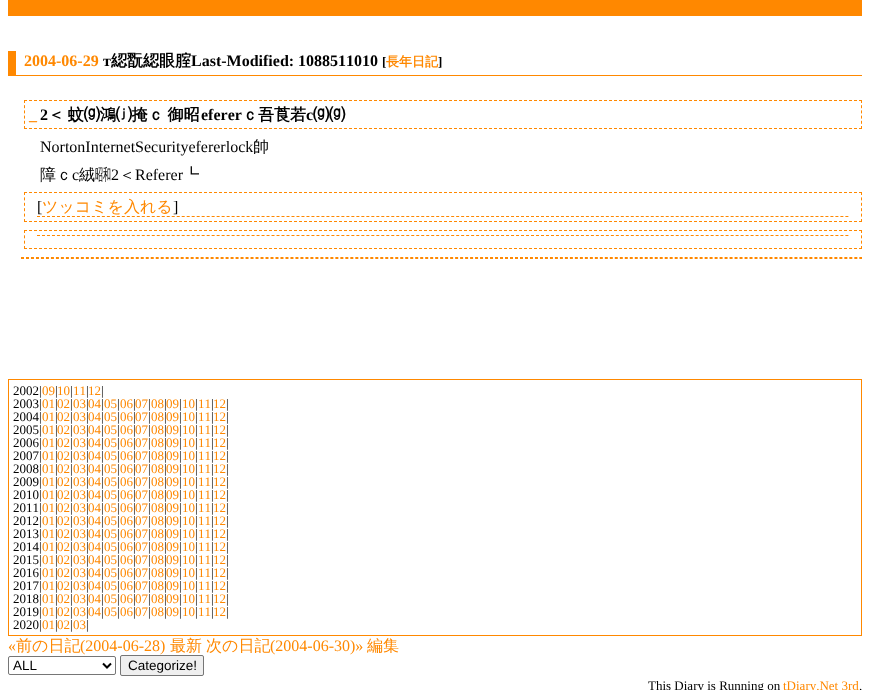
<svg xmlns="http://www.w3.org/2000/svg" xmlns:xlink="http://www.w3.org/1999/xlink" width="870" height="690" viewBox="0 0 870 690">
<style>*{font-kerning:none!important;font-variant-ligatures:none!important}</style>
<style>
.cls-1{font:bold 16px Liberation Serif;fill:#ff8800}
.cls-2{font:bold 16px Liberation Serif;fill:#000000}
.cls-3{font:bold 16px WenQuanYi Zen Hei;fill:#000000}
.cls-4{font:bold 13px Liberation Serif;fill:#000000}
.cls-5{font:bold 13px WenQuanYi Zen Hei;fill:#ff8800}
.cls-6{font:16px Liberation Serif;fill:#000000}
.cls-7{font:500 16px WenQuanYi Zen Hei;fill:#000000}
.cls-8{font:500 16px WenQuanYi Zen Hei;fill:#ff8800}
.cls-9{font:13px Liberation Serif;fill:#000000}
.cls-10{font:13px Liberation Serif;fill:#ff8800}
.cls-11{font:16px Liberation Serif;fill:#ff8800}
.cls-12{font:13.5px Liberation Sans;fill:#000000}
</style>
<rect width="100%" height="100%" fill="#ffffff"/>
<rect fill="#ff8800" x="8" y="0" width="854" height="16"/>
<rect fill="#ff8800" x="8" y="75" width="854" height="1"/>
<rect fill="#ff8800" x="8" y="51" width="8" height="25"/>
<path fill="none" stroke="#ff8800" stroke-dasharray="3 2" d="M24 100.5H862"/>
<path fill="none" stroke="#ff8800" stroke-dasharray="3 2.2" d="M861.5 100V129"/>
<path fill="none" stroke="#ff8800" stroke-dasharray="3 2" d="M24 128.5H862"/>
<path fill="none" stroke="#ff8800" stroke-dasharray="3 2.2" d="M24.5 100V129"/>
<path fill="none" stroke="#ff8800" stroke-dasharray="3 2" d="M24 192.5H862"/>
<path fill="none" stroke="#ff8800" stroke-dasharray="3 2.4" d="M861.5 192V222"/>
<path fill="none" stroke="#ff8800" stroke-dasharray="3 2" d="M24 221.5H862"/>
<path fill="none" stroke="#ff8800" stroke-dasharray="3 2.4" d="M24.5 192V222"/>
<path fill="none" stroke="#ff8800" stroke-dasharray="3 1.99" d="M37 216.5H849"/>
<path fill="none" stroke="#ff8800" stroke-dasharray="3 2" d="M24 230.5H862"/>
<path fill="none" stroke="#ff8800" stroke-dasharray="3 2.33" d="M861.5 230V249"/>
<path fill="none" stroke="#ff8800" stroke-dasharray="3 2" d="M24 248.5H862"/>
<path fill="none" stroke="#ff8800" stroke-dasharray="3 2.33" d="M24.5 230V249"/>
<path fill="none" stroke="#ff8800" stroke-dasharray="3 1.99" d="M37 235.5H849"/>
<path fill="none" stroke="#ff8800" stroke-dasharray="3 1.99" d="M21 257.5H862"/>
<rect fill="#ff8800" x="861" y="257" width="1" height="2"/>
<path fill="none" stroke="#ff8800" stroke-dasharray="3 1.99" d="M21 258.5H862"/>
<rect fill="none" stroke="#ff8800" x="8.5" y="379.5" width="853" height="256"/>
<rect fill="none" stroke="#767676" x="8.5" y="656.5" width="107" height="18" rx="1.5"/>
<path fill="none" stroke="#000000" stroke-width="2" d="M103 663.5L107 667.5L111 663.5"/>
<rect fill="#efefef" stroke="#767676" x="120.5" y="655.5" width="83" height="20" rx="1.5"/>
<text class="cls-1" x="24" y="66">2004-06-29</text>
<text class="cls-2" x="103" y="66">т</text>
<text class="cls-3" x="111" y="66">綛翫綛眼腟</text>
<text class="cls-2" x="191" y="66">Last-Modified: 1088511010</text>
<text class="cls-4" x="382" y="66">[</text>
<text class="cls-5" x="386" y="66">長年日記</text>
<text class="cls-4" x="438" y="66">]</text>
<text class="cls-2" x="40" y="120">2</text>
<text class="cls-3" x="48" y="120" word-spacing="-1">＜ 蚊⒢鴻⒥掩ｃ 御昭</text>
<text class="cls-2" x="201" y="120">eferer</text>
<text class="cls-3" x="242" y="120">ｃ吾莨若</text>
<text class="cls-2" x="306" y="120">с</text>
<text class="cls-3" x="313" y="120">⒢⒢</text>
<text class="cls-1" x="29" y="120">_</text>
<text class="cls-6" x="40" y="152">NortonInternetSecurityefererlock</text>
<text class="cls-7" x="253" y="152">帥</text>
<text class="cls-7" x="40" y="180">障ｃ</text>
<text class="cls-6" x="72" y="180">с</text>
<text class="cls-7" x="79" y="180">絨㍼</text>
<text class="cls-6" x="111" y="180">2</text>
<text class="cls-7" x="119" y="180">＜</text>
<text class="cls-6" x="135" y="180">Referer</text>
<text class="cls-7" x="183" y="180">┗</text>
<text class="cls-6" x="37" y="212">[</text>
<text class="cls-8" x="42" y="212">ツッコミを入れる</text>
<text class="cls-6" x="173" y="212">]</text>
<text class="cls-9" x="13" y="395">2002|</text>
<text class="cls-10" x="42" y="395">09</text>
<text class="cls-9" x="55" y="395">|</text>
<text class="cls-10" x="57" y="395">10</text>
<text class="cls-9" x="70" y="395">|</text>
<text class="cls-10" x="73" y="395">11</text>
<text class="cls-9" x="86" y="395">|</text>
<text class="cls-10" x="88" y="395">12</text>
<text class="cls-9" x="101" y="395">|</text>
<text class="cls-9" x="13" y="408">2003|</text>
<text class="cls-10" x="42" y="408">01</text>
<text class="cls-9" x="55" y="408">|</text>
<text class="cls-10" x="57" y="408">02</text>
<text class="cls-9" x="70" y="408">|</text>
<text class="cls-10" x="73" y="408">03</text>
<text class="cls-9" x="86" y="408">|</text>
<text class="cls-10" x="88" y="408">04</text>
<text class="cls-9" x="101" y="408">|</text>
<text class="cls-10" x="104" y="408">05</text>
<text class="cls-9" x="117" y="408">|</text>
<text class="cls-10" x="120" y="408">06</text>
<text class="cls-9" x="133" y="408">|</text>
<text class="cls-10" x="135" y="408">07</text>
<text class="cls-9" x="148" y="408">|</text>
<text class="cls-10" x="151" y="408">08</text>
<text class="cls-9" x="164" y="408">|</text>
<text class="cls-10" x="166" y="408">09</text>
<text class="cls-9" x="179" y="408">|</text>
<text class="cls-10" x="182" y="408">10</text>
<text class="cls-9" x="195" y="408">|</text>
<text class="cls-10" x="198" y="408">11</text>
<text class="cls-9" x="211" y="408">|</text>
<text class="cls-10" x="213" y="408">12</text>
<text class="cls-9" x="226" y="408">|</text>
<text class="cls-9" x="13" y="421">2004|</text>
<text class="cls-10" x="42" y="421">01</text>
<text class="cls-9" x="55" y="421">|</text>
<text class="cls-10" x="57" y="421">02</text>
<text class="cls-9" x="70" y="421">|</text>
<text class="cls-10" x="73" y="421">03</text>
<text class="cls-9" x="86" y="421">|</text>
<text class="cls-10" x="88" y="421">04</text>
<text class="cls-9" x="101" y="421">|</text>
<text class="cls-10" x="104" y="421">05</text>
<text class="cls-9" x="117" y="421">|</text>
<text class="cls-10" x="120" y="421">06</text>
<text class="cls-9" x="133" y="421">|</text>
<text class="cls-10" x="135" y="421">07</text>
<text class="cls-9" x="148" y="421">|</text>
<text class="cls-10" x="151" y="421">08</text>
<text class="cls-9" x="164" y="421">|</text>
<text class="cls-10" x="166" y="421">09</text>
<text class="cls-9" x="179" y="421">|</text>
<text class="cls-10" x="182" y="421">10</text>
<text class="cls-9" x="195" y="421">|</text>
<text class="cls-10" x="198" y="421">11</text>
<text class="cls-9" x="211" y="421">|</text>
<text class="cls-10" x="213" y="421">12</text>
<text class="cls-9" x="226" y="421">|</text>
<text class="cls-9" x="13" y="434">2005|</text>
<text class="cls-10" x="42" y="434">01</text>
<text class="cls-9" x="55" y="434">|</text>
<text class="cls-10" x="57" y="434">02</text>
<text class="cls-9" x="70" y="434">|</text>
<text class="cls-10" x="73" y="434">03</text>
<text class="cls-9" x="86" y="434">|</text>
<text class="cls-10" x="88" y="434">04</text>
<text class="cls-9" x="101" y="434">|</text>
<text class="cls-10" x="104" y="434">05</text>
<text class="cls-9" x="117" y="434">|</text>
<text class="cls-10" x="120" y="434">06</text>
<text class="cls-9" x="133" y="434">|</text>
<text class="cls-10" x="135" y="434">07</text>
<text class="cls-9" x="148" y="434">|</text>
<text class="cls-10" x="151" y="434">08</text>
<text class="cls-9" x="164" y="434">|</text>
<text class="cls-10" x="166" y="434">09</text>
<text class="cls-9" x="179" y="434">|</text>
<text class="cls-10" x="182" y="434">10</text>
<text class="cls-9" x="195" y="434">|</text>
<text class="cls-10" x="198" y="434">11</text>
<text class="cls-9" x="211" y="434">|</text>
<text class="cls-10" x="213" y="434">12</text>
<text class="cls-9" x="226" y="434">|</text>
<text class="cls-9" x="13" y="447">2006|</text>
<text class="cls-10" x="42" y="447">01</text>
<text class="cls-9" x="55" y="447">|</text>
<text class="cls-10" x="57" y="447">02</text>
<text class="cls-9" x="70" y="447">|</text>
<text class="cls-10" x="73" y="447">03</text>
<text class="cls-9" x="86" y="447">|</text>
<text class="cls-10" x="88" y="447">04</text>
<text class="cls-9" x="101" y="447">|</text>
<text class="cls-10" x="104" y="447">05</text>
<text class="cls-9" x="117" y="447">|</text>
<text class="cls-10" x="120" y="447">06</text>
<text class="cls-9" x="133" y="447">|</text>
<text class="cls-10" x="135" y="447">07</text>
<text class="cls-9" x="148" y="447">|</text>
<text class="cls-10" x="151" y="447">08</text>
<text class="cls-9" x="164" y="447">|</text>
<text class="cls-10" x="166" y="447">09</text>
<text class="cls-9" x="179" y="447">|</text>
<text class="cls-10" x="182" y="447">10</text>
<text class="cls-9" x="195" y="447">|</text>
<text class="cls-10" x="198" y="447">11</text>
<text class="cls-9" x="211" y="447">|</text>
<text class="cls-10" x="213" y="447">12</text>
<text class="cls-9" x="226" y="447">|</text>
<text class="cls-9" x="13" y="460">2007|</text>
<text class="cls-10" x="42" y="460">01</text>
<text class="cls-9" x="55" y="460">|</text>
<text class="cls-10" x="57" y="460">02</text>
<text class="cls-9" x="70" y="460">|</text>
<text class="cls-10" x="73" y="460">03</text>
<text class="cls-9" x="86" y="460">|</text>
<text class="cls-10" x="88" y="460">04</text>
<text class="cls-9" x="101" y="460">|</text>
<text class="cls-10" x="104" y="460">05</text>
<text class="cls-9" x="117" y="460">|</text>
<text class="cls-10" x="120" y="460">06</text>
<text class="cls-9" x="133" y="460">|</text>
<text class="cls-10" x="135" y="460">07</text>
<text class="cls-9" x="148" y="460">|</text>
<text class="cls-10" x="151" y="460">08</text>
<text class="cls-9" x="164" y="460">|</text>
<text class="cls-10" x="166" y="460">09</text>
<text class="cls-9" x="179" y="460">|</text>
<text class="cls-10" x="182" y="460">10</text>
<text class="cls-9" x="195" y="460">|</text>
<text class="cls-10" x="198" y="460">11</text>
<text class="cls-9" x="211" y="460">|</text>
<text class="cls-10" x="213" y="460">12</text>
<text class="cls-9" x="226" y="460">|</text>
<text class="cls-9" x="13" y="473">2008|</text>
<text class="cls-10" x="42" y="473">01</text>
<text class="cls-9" x="55" y="473">|</text>
<text class="cls-10" x="57" y="473">02</text>
<text class="cls-9" x="70" y="473">|</text>
<text class="cls-10" x="73" y="473">03</text>
<text class="cls-9" x="86" y="473">|</text>
<text class="cls-10" x="88" y="473">04</text>
<text class="cls-9" x="101" y="473">|</text>
<text class="cls-10" x="104" y="473">05</text>
<text class="cls-9" x="117" y="473">|</text>
<text class="cls-10" x="120" y="473">06</text>
<text class="cls-9" x="133" y="473">|</text>
<text class="cls-10" x="135" y="473">07</text>
<text class="cls-9" x="148" y="473">|</text>
<text class="cls-10" x="151" y="473">08</text>
<text class="cls-9" x="164" y="473">|</text>
<text class="cls-10" x="166" y="473">09</text>
<text class="cls-9" x="179" y="473">|</text>
<text class="cls-10" x="182" y="473">10</text>
<text class="cls-9" x="195" y="473">|</text>
<text class="cls-10" x="198" y="473">11</text>
<text class="cls-9" x="211" y="473">|</text>
<text class="cls-10" x="213" y="473">12</text>
<text class="cls-9" x="226" y="473">|</text>
<text class="cls-9" x="13" y="486">2009|</text>
<text class="cls-10" x="42" y="486">01</text>
<text class="cls-9" x="55" y="486">|</text>
<text class="cls-10" x="57" y="486">02</text>
<text class="cls-9" x="70" y="486">|</text>
<text class="cls-10" x="73" y="486">03</text>
<text class="cls-9" x="86" y="486">|</text>
<text class="cls-10" x="88" y="486">04</text>
<text class="cls-9" x="101" y="486">|</text>
<text class="cls-10" x="104" y="486">05</text>
<text class="cls-9" x="117" y="486">|</text>
<text class="cls-10" x="120" y="486">06</text>
<text class="cls-9" x="133" y="486">|</text>
<text class="cls-10" x="135" y="486">07</text>
<text class="cls-9" x="148" y="486">|</text>
<text class="cls-10" x="151" y="486">08</text>
<text class="cls-9" x="164" y="486">|</text>
<text class="cls-10" x="166" y="486">09</text>
<text class="cls-9" x="179" y="486">|</text>
<text class="cls-10" x="182" y="486">10</text>
<text class="cls-9" x="195" y="486">|</text>
<text class="cls-10" x="198" y="486">11</text>
<text class="cls-9" x="211" y="486">|</text>
<text class="cls-10" x="213" y="486">12</text>
<text class="cls-9" x="226" y="486">|</text>
<text class="cls-9" x="13" y="499">2010|</text>
<text class="cls-10" x="42" y="499">01</text>
<text class="cls-9" x="55" y="499">|</text>
<text class="cls-10" x="57" y="499">02</text>
<text class="cls-9" x="70" y="499">|</text>
<text class="cls-10" x="73" y="499">03</text>
<text class="cls-9" x="86" y="499">|</text>
<text class="cls-10" x="88" y="499">04</text>
<text class="cls-9" x="101" y="499">|</text>
<text class="cls-10" x="104" y="499">05</text>
<text class="cls-9" x="117" y="499">|</text>
<text class="cls-10" x="120" y="499">06</text>
<text class="cls-9" x="133" y="499">|</text>
<text class="cls-10" x="135" y="499">07</text>
<text class="cls-9" x="148" y="499">|</text>
<text class="cls-10" x="151" y="499">08</text>
<text class="cls-9" x="164" y="499">|</text>
<text class="cls-10" x="166" y="499">09</text>
<text class="cls-9" x="179" y="499">|</text>
<text class="cls-10" x="182" y="499">10</text>
<text class="cls-9" x="195" y="499">|</text>
<text class="cls-10" x="198" y="499">11</text>
<text class="cls-9" x="211" y="499">|</text>
<text class="cls-10" x="213" y="499">12</text>
<text class="cls-9" x="226" y="499">|</text>
<text class="cls-9" x="13" y="512">2011|</text>
<text class="cls-10" x="42" y="512">01</text>
<text class="cls-9" x="55" y="512">|</text>
<text class="cls-10" x="57" y="512">02</text>
<text class="cls-9" x="70" y="512">|</text>
<text class="cls-10" x="73" y="512">03</text>
<text class="cls-9" x="86" y="512">|</text>
<text class="cls-10" x="88" y="512">04</text>
<text class="cls-9" x="101" y="512">|</text>
<text class="cls-10" x="104" y="512">05</text>
<text class="cls-9" x="117" y="512">|</text>
<text class="cls-10" x="120" y="512">06</text>
<text class="cls-9" x="133" y="512">|</text>
<text class="cls-10" x="135" y="512">07</text>
<text class="cls-9" x="148" y="512">|</text>
<text class="cls-10" x="151" y="512">08</text>
<text class="cls-9" x="164" y="512">|</text>
<text class="cls-10" x="166" y="512">09</text>
<text class="cls-9" x="179" y="512">|</text>
<text class="cls-10" x="182" y="512">10</text>
<text class="cls-9" x="195" y="512">|</text>
<text class="cls-10" x="198" y="512">11</text>
<text class="cls-9" x="211" y="512">|</text>
<text class="cls-10" x="213" y="512">12</text>
<text class="cls-9" x="226" y="512">|</text>
<text class="cls-9" x="13" y="525">2012|</text>
<text class="cls-10" x="42" y="525">01</text>
<text class="cls-9" x="55" y="525">|</text>
<text class="cls-10" x="57" y="525">02</text>
<text class="cls-9" x="70" y="525">|</text>
<text class="cls-10" x="73" y="525">03</text>
<text class="cls-9" x="86" y="525">|</text>
<text class="cls-10" x="88" y="525">04</text>
<text class="cls-9" x="101" y="525">|</text>
<text class="cls-10" x="104" y="525">05</text>
<text class="cls-9" x="117" y="525">|</text>
<text class="cls-10" x="120" y="525">06</text>
<text class="cls-9" x="133" y="525">|</text>
<text class="cls-10" x="135" y="525">07</text>
<text class="cls-9" x="148" y="525">|</text>
<text class="cls-10" x="151" y="525">08</text>
<text class="cls-9" x="164" y="525">|</text>
<text class="cls-10" x="166" y="525">09</text>
<text class="cls-9" x="179" y="525">|</text>
<text class="cls-10" x="182" y="525">10</text>
<text class="cls-9" x="195" y="525">|</text>
<text class="cls-10" x="198" y="525">11</text>
<text class="cls-9" x="211" y="525">|</text>
<text class="cls-10" x="213" y="525">12</text>
<text class="cls-9" x="226" y="525">|</text>
<text class="cls-9" x="13" y="538">2013|</text>
<text class="cls-10" x="42" y="538">01</text>
<text class="cls-9" x="55" y="538">|</text>
<text class="cls-10" x="57" y="538">02</text>
<text class="cls-9" x="70" y="538">|</text>
<text class="cls-10" x="73" y="538">03</text>
<text class="cls-9" x="86" y="538">|</text>
<text class="cls-10" x="88" y="538">04</text>
<text class="cls-9" x="101" y="538">|</text>
<text class="cls-10" x="104" y="538">05</text>
<text class="cls-9" x="117" y="538">|</text>
<text class="cls-10" x="120" y="538">06</text>
<text class="cls-9" x="133" y="538">|</text>
<text class="cls-10" x="135" y="538">07</text>
<text class="cls-9" x="148" y="538">|</text>
<text class="cls-10" x="151" y="538">08</text>
<text class="cls-9" x="164" y="538">|</text>
<text class="cls-10" x="166" y="538">09</text>
<text class="cls-9" x="179" y="538">|</text>
<text class="cls-10" x="182" y="538">10</text>
<text class="cls-9" x="195" y="538">|</text>
<text class="cls-10" x="198" y="538">11</text>
<text class="cls-9" x="211" y="538">|</text>
<text class="cls-10" x="213" y="538">12</text>
<text class="cls-9" x="226" y="538">|</text>
<text class="cls-9" x="13" y="551">2014|</text>
<text class="cls-10" x="42" y="551">01</text>
<text class="cls-9" x="55" y="551">|</text>
<text class="cls-10" x="57" y="551">02</text>
<text class="cls-9" x="70" y="551">|</text>
<text class="cls-10" x="73" y="551">03</text>
<text class="cls-9" x="86" y="551">|</text>
<text class="cls-10" x="88" y="551">04</text>
<text class="cls-9" x="101" y="551">|</text>
<text class="cls-10" x="104" y="551">05</text>
<text class="cls-9" x="117" y="551">|</text>
<text class="cls-10" x="120" y="551">06</text>
<text class="cls-9" x="133" y="551">|</text>
<text class="cls-10" x="135" y="551">07</text>
<text class="cls-9" x="148" y="551">|</text>
<text class="cls-10" x="151" y="551">08</text>
<text class="cls-9" x="164" y="551">|</text>
<text class="cls-10" x="166" y="551">09</text>
<text class="cls-9" x="179" y="551">|</text>
<text class="cls-10" x="182" y="551">10</text>
<text class="cls-9" x="195" y="551">|</text>
<text class="cls-10" x="198" y="551">11</text>
<text class="cls-9" x="211" y="551">|</text>
<text class="cls-10" x="213" y="551">12</text>
<text class="cls-9" x="226" y="551">|</text>
<text class="cls-9" x="13" y="564">2015|</text>
<text class="cls-10" x="42" y="564">01</text>
<text class="cls-9" x="55" y="564">|</text>
<text class="cls-10" x="57" y="564">02</text>
<text class="cls-9" x="70" y="564">|</text>
<text class="cls-10" x="73" y="564">03</text>
<text class="cls-9" x="86" y="564">|</text>
<text class="cls-10" x="88" y="564">04</text>
<text class="cls-9" x="101" y="564">|</text>
<text class="cls-10" x="104" y="564">05</text>
<text class="cls-9" x="117" y="564">|</text>
<text class="cls-10" x="120" y="564">06</text>
<text class="cls-9" x="133" y="564">|</text>
<text class="cls-10" x="135" y="564">07</text>
<text class="cls-9" x="148" y="564">|</text>
<text class="cls-10" x="151" y="564">08</text>
<text class="cls-9" x="164" y="564">|</text>
<text class="cls-10" x="166" y="564">09</text>
<text class="cls-9" x="179" y="564">|</text>
<text class="cls-10" x="182" y="564">10</text>
<text class="cls-9" x="195" y="564">|</text>
<text class="cls-10" x="198" y="564">11</text>
<text class="cls-9" x="211" y="564">|</text>
<text class="cls-10" x="213" y="564">12</text>
<text class="cls-9" x="226" y="564">|</text>
<text class="cls-9" x="13" y="577">2016|</text>
<text class="cls-10" x="42" y="577">01</text>
<text class="cls-9" x="55" y="577">|</text>
<text class="cls-10" x="57" y="577">02</text>
<text class="cls-9" x="70" y="577">|</text>
<text class="cls-10" x="73" y="577">03</text>
<text class="cls-9" x="86" y="577">|</text>
<text class="cls-10" x="88" y="577">04</text>
<text class="cls-9" x="101" y="577">|</text>
<text class="cls-10" x="104" y="577">05</text>
<text class="cls-9" x="117" y="577">|</text>
<text class="cls-10" x="120" y="577">06</text>
<text class="cls-9" x="133" y="577">|</text>
<text class="cls-10" x="135" y="577">07</text>
<text class="cls-9" x="148" y="577">|</text>
<text class="cls-10" x="151" y="577">08</text>
<text class="cls-9" x="164" y="577">|</text>
<text class="cls-10" x="166" y="577">09</text>
<text class="cls-9" x="179" y="577">|</text>
<text class="cls-10" x="182" y="577">10</text>
<text class="cls-9" x="195" y="577">|</text>
<text class="cls-10" x="198" y="577">11</text>
<text class="cls-9" x="211" y="577">|</text>
<text class="cls-10" x="213" y="577">12</text>
<text class="cls-9" x="226" y="577">|</text>
<text class="cls-9" x="13" y="590">2017|</text>
<text class="cls-10" x="42" y="590">01</text>
<text class="cls-9" x="55" y="590">|</text>
<text class="cls-10" x="57" y="590">02</text>
<text class="cls-9" x="70" y="590">|</text>
<text class="cls-10" x="73" y="590">03</text>
<text class="cls-9" x="86" y="590">|</text>
<text class="cls-10" x="88" y="590">04</text>
<text class="cls-9" x="101" y="590">|</text>
<text class="cls-10" x="104" y="590">05</text>
<text class="cls-9" x="117" y="590">|</text>
<text class="cls-10" x="120" y="590">06</text>
<text class="cls-9" x="133" y="590">|</text>
<text class="cls-10" x="135" y="590">07</text>
<text class="cls-9" x="148" y="590">|</text>
<text class="cls-10" x="151" y="590">08</text>
<text class="cls-9" x="164" y="590">|</text>
<text class="cls-10" x="166" y="590">09</text>
<text class="cls-9" x="179" y="590">|</text>
<text class="cls-10" x="182" y="590">10</text>
<text class="cls-9" x="195" y="590">|</text>
<text class="cls-10" x="198" y="590">11</text>
<text class="cls-9" x="211" y="590">|</text>
<text class="cls-10" x="213" y="590">12</text>
<text class="cls-9" x="226" y="590">|</text>
<text class="cls-9" x="13" y="603">2018|</text>
<text class="cls-10" x="42" y="603">01</text>
<text class="cls-9" x="55" y="603">|</text>
<text class="cls-10" x="57" y="603">02</text>
<text class="cls-9" x="70" y="603">|</text>
<text class="cls-10" x="73" y="603">03</text>
<text class="cls-9" x="86" y="603">|</text>
<text class="cls-10" x="88" y="603">04</text>
<text class="cls-9" x="101" y="603">|</text>
<text class="cls-10" x="104" y="603">05</text>
<text class="cls-9" x="117" y="603">|</text>
<text class="cls-10" x="120" y="603">06</text>
<text class="cls-9" x="133" y="603">|</text>
<text class="cls-10" x="135" y="603">07</text>
<text class="cls-9" x="148" y="603">|</text>
<text class="cls-10" x="151" y="603">08</text>
<text class="cls-9" x="164" y="603">|</text>
<text class="cls-10" x="166" y="603">09</text>
<text class="cls-9" x="179" y="603">|</text>
<text class="cls-10" x="182" y="603">10</text>
<text class="cls-9" x="195" y="603">|</text>
<text class="cls-10" x="198" y="603">11</text>
<text class="cls-9" x="211" y="603">|</text>
<text class="cls-10" x="213" y="603">12</text>
<text class="cls-9" x="226" y="603">|</text>
<text class="cls-9" x="13" y="616">2019|</text>
<text class="cls-10" x="42" y="616">01</text>
<text class="cls-9" x="55" y="616">|</text>
<text class="cls-10" x="57" y="616">02</text>
<text class="cls-9" x="70" y="616">|</text>
<text class="cls-10" x="73" y="616">03</text>
<text class="cls-9" x="86" y="616">|</text>
<text class="cls-10" x="88" y="616">04</text>
<text class="cls-9" x="101" y="616">|</text>
<text class="cls-10" x="104" y="616">05</text>
<text class="cls-9" x="117" y="616">|</text>
<text class="cls-10" x="120" y="616">06</text>
<text class="cls-9" x="133" y="616">|</text>
<text class="cls-10" x="135" y="616">07</text>
<text class="cls-9" x="148" y="616">|</text>
<text class="cls-10" x="151" y="616">08</text>
<text class="cls-9" x="164" y="616">|</text>
<text class="cls-10" x="166" y="616">09</text>
<text class="cls-9" x="179" y="616">|</text>
<text class="cls-10" x="182" y="616">10</text>
<text class="cls-9" x="195" y="616">|</text>
<text class="cls-10" x="198" y="616">11</text>
<text class="cls-9" x="211" y="616">|</text>
<text class="cls-10" x="213" y="616">12</text>
<text class="cls-9" x="226" y="616">|</text>
<text class="cls-9" x="13" y="629">2020|</text>
<text class="cls-10" x="42" y="629">01</text>
<text class="cls-9" x="55" y="629">|</text>
<text class="cls-10" x="57" y="629">02</text>
<text class="cls-9" x="70" y="629">|</text>
<text class="cls-10" x="73" y="629">03</text>
<text class="cls-9" x="86" y="629">|</text>
<text class="cls-11" x="8" y="651">«</text>
<text class="cls-8" x="16" y="651">前の日記</text>
<text class="cls-11" x="80" y="651">(2004-06-28)</text>
<text class="cls-8" x="170" y="651">最新</text>
<text class="cls-8" x="206" y="651">次の日記</text>
<text class="cls-11" x="270" y="651">(2004-06-30)»</text>
<text class="cls-8" x="367" y="651">編集</text>
<text class="cls-12" x="13" y="670">ALL</text>
<text class="cls-12" x="128" y="670">Categorize!</text>
<text class="cls-9" x="648" y="690">This Diary is Running on</text>
<text class="cls-10" x="783" y="690">tDiary.Net 3rd</text>
<text class="cls-9" x="859" y="690">.</text>
</svg>
